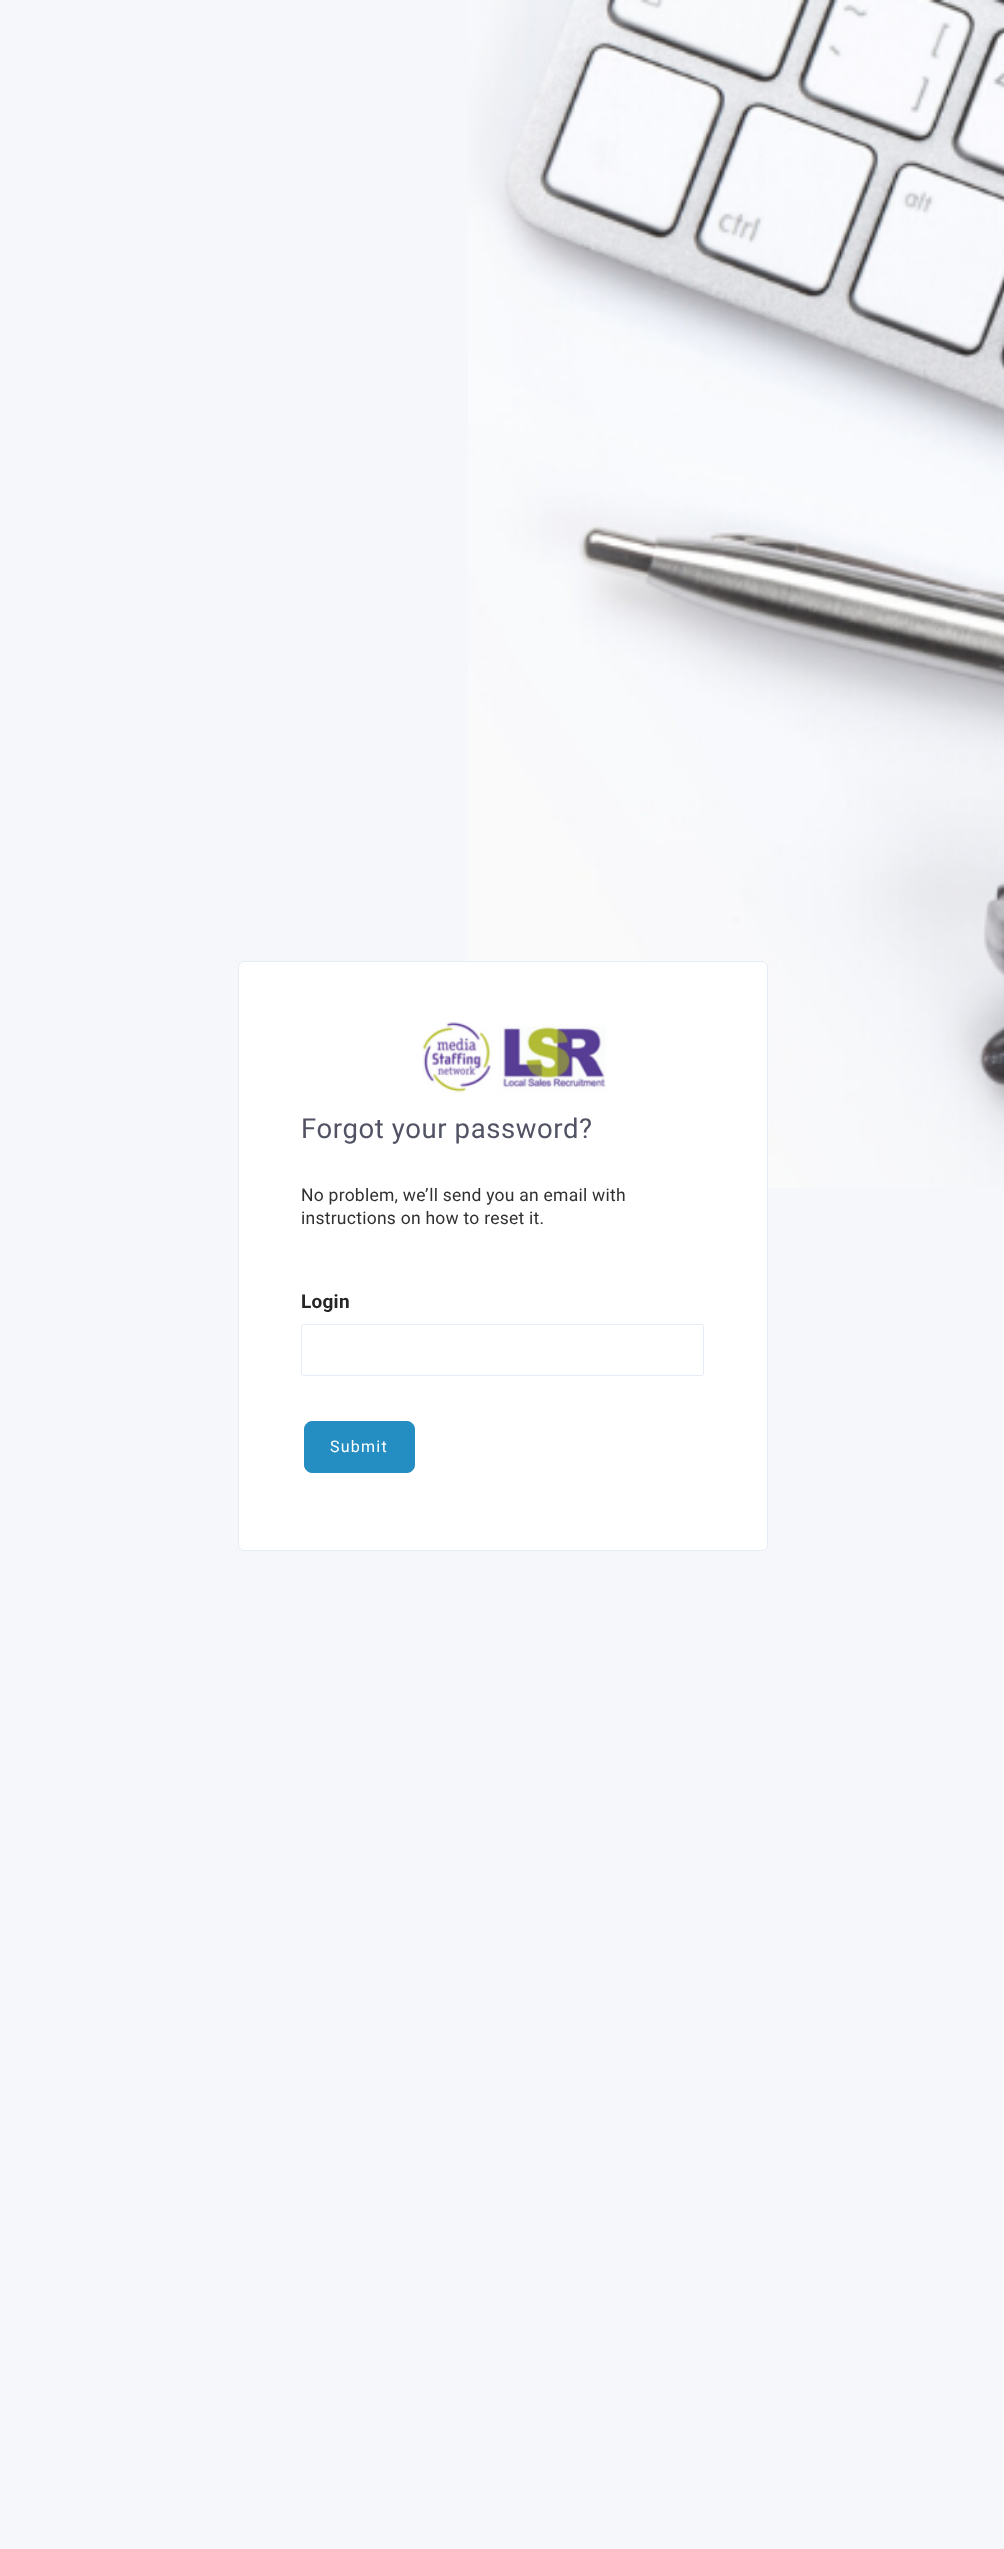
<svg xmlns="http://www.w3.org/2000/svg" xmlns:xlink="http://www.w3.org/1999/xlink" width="1004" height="2549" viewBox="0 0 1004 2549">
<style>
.cls-1{font:27.5px Roboto;letter-spacing:0.6px;fill:#515365}
.cls-2{font:17.5px Roboto;letter-spacing:0.25px;fill:#303030}
.cls-3{font:bold 19px Roboto;letter-spacing:0.25px;fill:#262626}
.cls-4{font:16px Roboto;letter-spacing:1.25px;fill:#ffffff}
</style>
<rect width="100%" height="100%" fill="#f6f7fb"/>
<image xlink:href="image0.png" x="468" y="0" width="536" height="1188"/>
<rect fill="#ffffff" stroke="#e6ecf5" x="238.5" y="961.5" width="529" height="589" rx="5.5"/>
<image xlink:href="image1.png" x="422" y="1022" width="184" height="72"/>
<rect fill="none" stroke="#e6ecf5" x="301.5" y="1324.5" width="402" height="51" rx="2"/>
<rect fill="#248dc1" stroke="#248dc1" x="304.5" y="1421.5" width="110" height="51" rx="7.5"/>
<text class="cls-1" x="301" y="1138">Forgot your password?</text>
<text class="cls-2"><tspan x="301" y="1201">No problem, we’ll send you an email with</tspan><tspan x="301" y="1224">instructions on how to reset it.</tspan></text>
<text class="cls-3" x="301" y="1308">Login</text>
<text class="cls-4" x="330" y="1452">Submit</text>
</svg>
